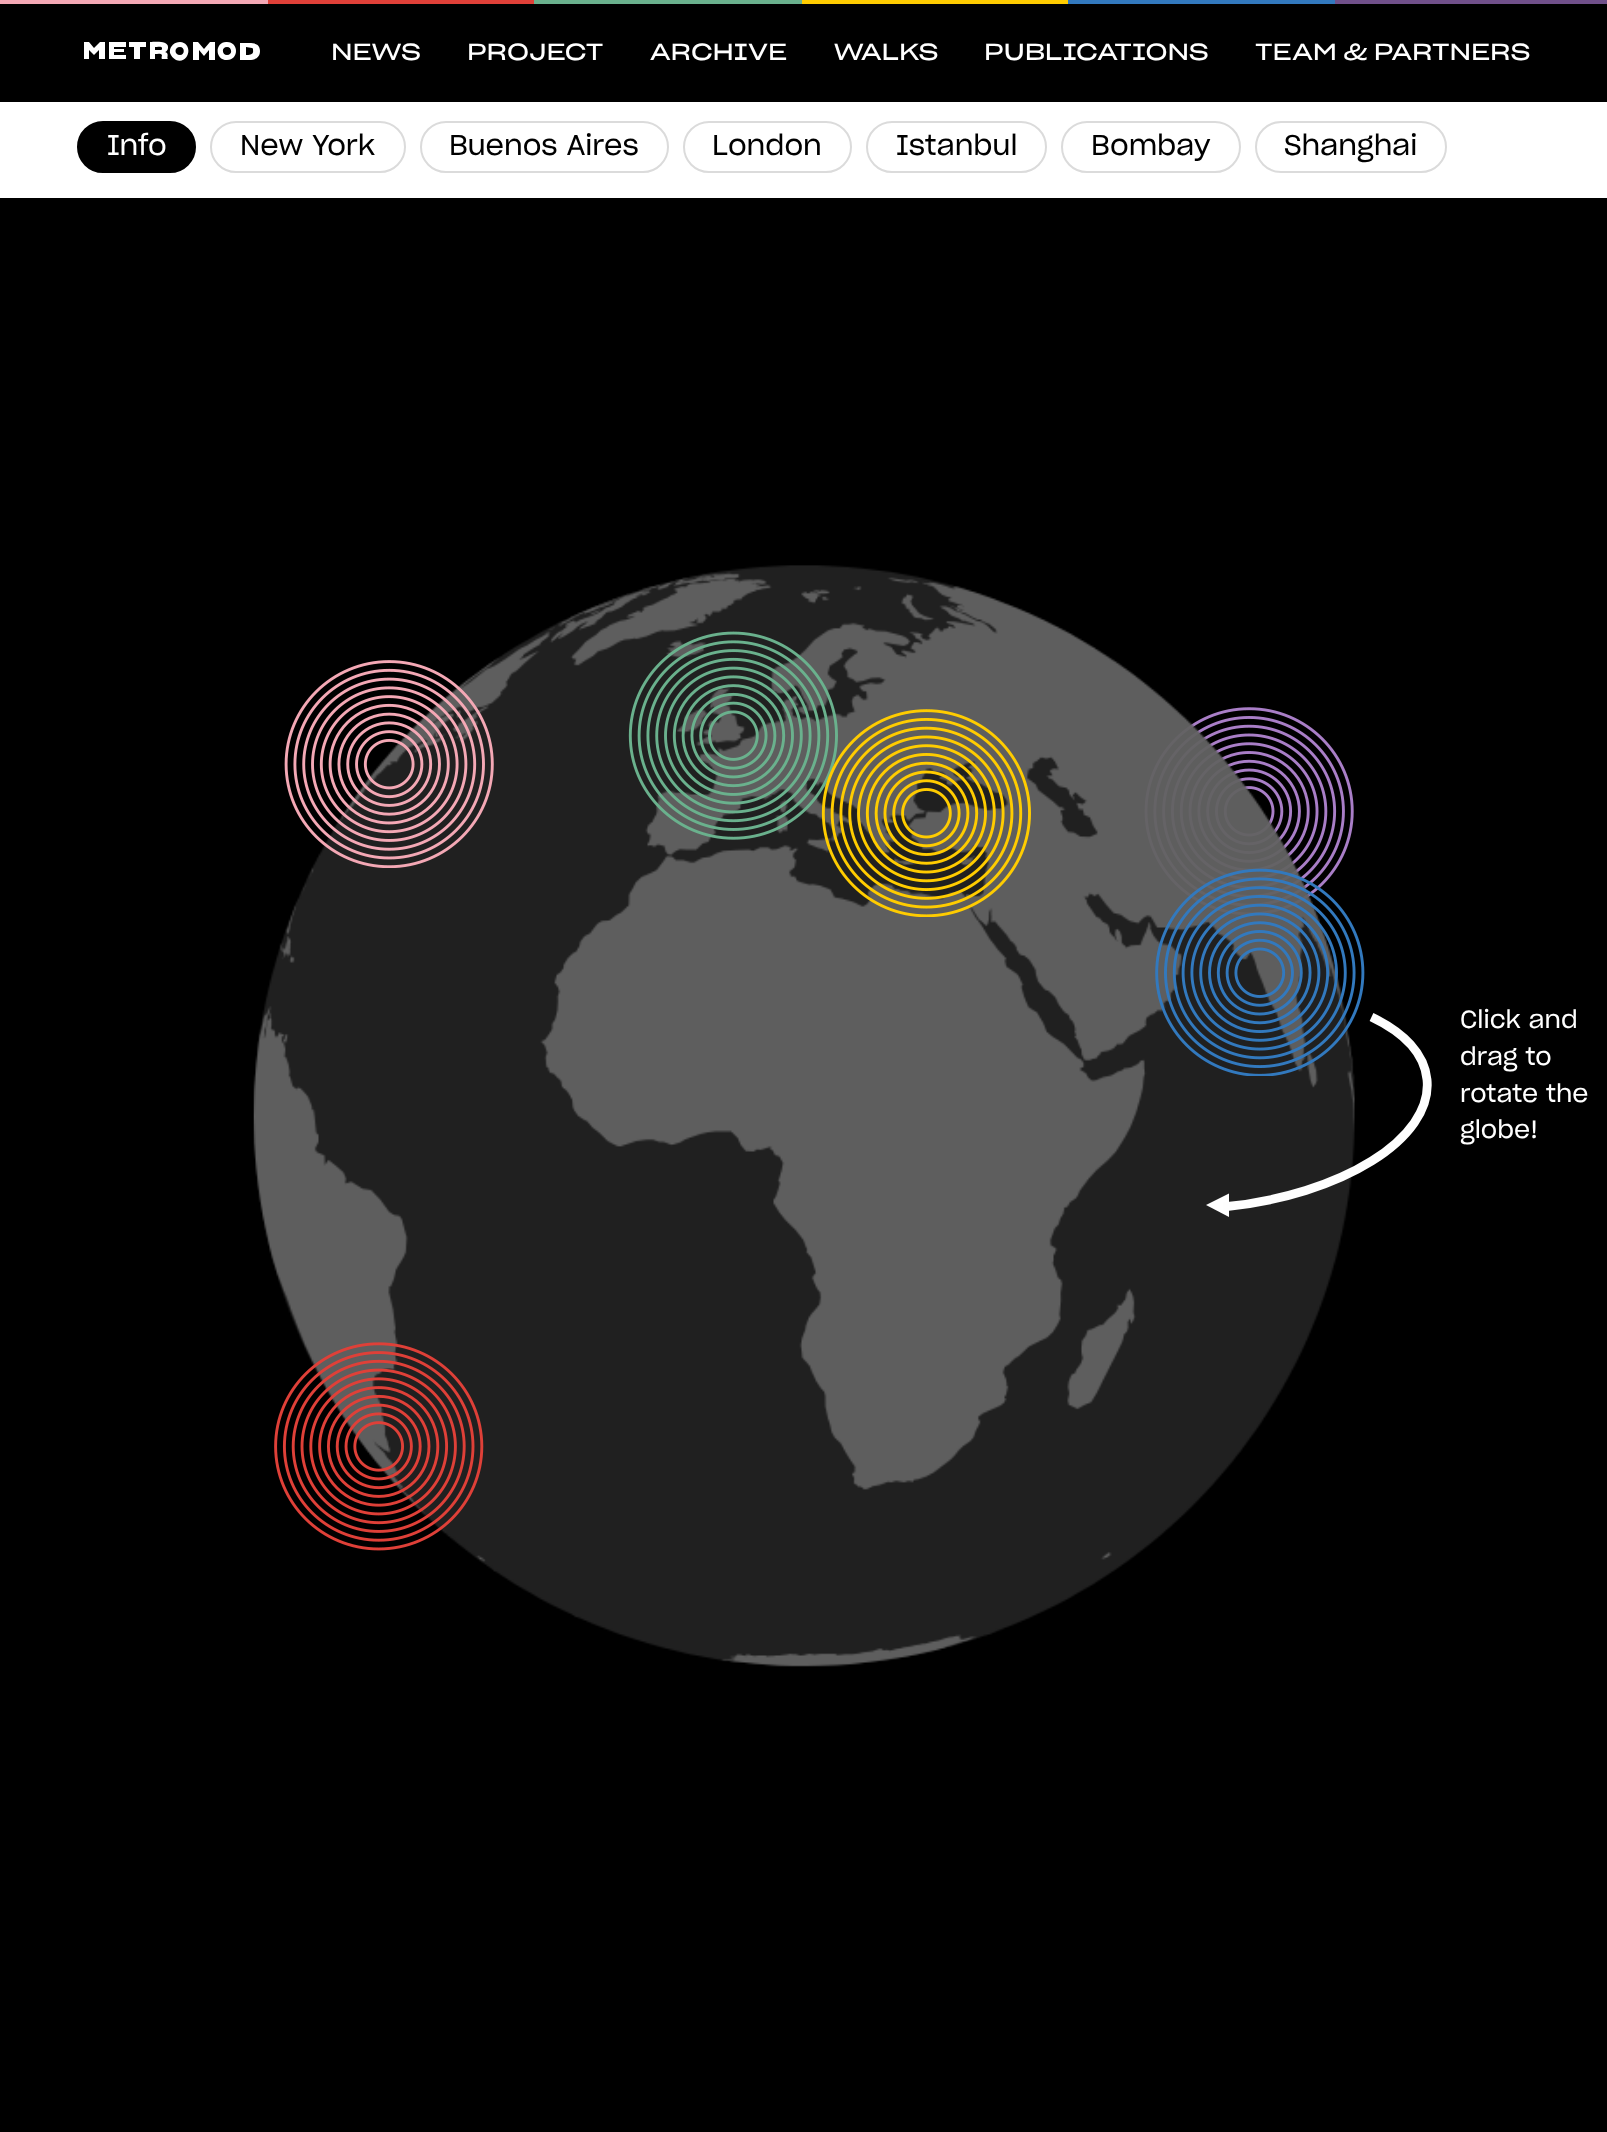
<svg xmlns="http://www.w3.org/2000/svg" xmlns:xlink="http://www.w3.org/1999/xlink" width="1607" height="2132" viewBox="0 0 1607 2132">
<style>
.cls-1{font:23px 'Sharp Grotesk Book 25';fill:#ffffff}
.cls-2{font:28px 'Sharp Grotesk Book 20';fill:#ffffff}
.cls-3{font:28px 'Sharp Grotesk Book 20';fill:#000000}
.cls-4{font:24.5px 'Sharp Grotesk Book 20';fill:#ffffff}
</style>
<rect width="100%" height="100%" fill="#000000"/>
<rect fill="#f4a8b5" x="0" y="0" width="268" height="4"/>
<rect fill="#df4038" x="268" y="0" width="266" height="4"/>
<rect fill="#6ab18d" x="534" y="0" width="268" height="4"/>
<rect fill="#ffcc00" x="802" y="0" width="266" height="4"/>
<rect fill="#3279be" x="1068" y="0" width="267" height="4"/>
<rect fill="#70508a" x="1335" y="0" width="272" height="4"/>
<path fill="#ffffff" fill-rule="evenodd" d="M227 42C215 41 214 60 227 60C239 60 239 42 227 42ZM180 42C174 42 169 47 170 53C171 56 173 58 176 60C189 65 194 43 180 42ZM89 50L94 55L99 50V59H105V42H100L94 48L89 42H84V59H89ZM155 54C157 54 161 53 162 55C162 56 161 58 162 59H168C166 58 170 53 165 52C166 52 168 50 168 48C169 40 155 42 150 42V59H155ZM126 59V55H114V52H124V49H114V47H126V42H109V59ZM140 47H146V42H129V47H134V59H140ZM199 50L204 56L209 50V60H215V42H210L204 49L198 42H193V60H199ZM240 43V60H249C256 60 260 57 260 51C260 45 256 43 249 43ZM155 47C157 47 162 46 162 48C162 49 162 50 161 50H155ZM227 55C222 55 221 47 227 47C232 47 233 55 227 55ZM180 55C174 55 174 47 180 47C185 47 185 55 180 55ZM246 47L252 48C253 48 253 49 253 50C254 55 249 55 246 55Z"/>
<rect fill="#ffffff" x="0" y="102" width="1607" height="96"/>
<rect fill="#000000" stroke="#000000" stroke-width="2" x="78" y="122" width="117" height="50" rx="25"/>
<rect fill="none" stroke="#dbdbdb" stroke-width="2" x="211" y="122" width="194" height="50" rx="25"/>
<rect fill="none" stroke="#dbdbdb" stroke-width="2" x="421" y="122" width="247" height="50" rx="25"/>
<rect fill="none" stroke="#dbdbdb" stroke-width="2" x="684" y="122" width="167" height="50" rx="25"/>
<rect fill="none" stroke="#dbdbdb" stroke-width="2" x="867" y="122" width="179" height="50" rx="25"/>
<rect fill="none" stroke="#dbdbdb" stroke-width="2" x="1062" y="122" width="178" height="50" rx="25"/>
<rect fill="none" stroke="#dbdbdb" stroke-width="2" x="1256" y="122" width="190" height="50" rx="25"/>
<image xlink:href="image4.png" x="1144" y="707" width="210" height="208"/>
<image xlink:href="image0.png" x="253" y="565" width="1102" height="1102"/>
<image xlink:href="image1.png" x="284" y="660" width="210" height="208"/>
<image xlink:href="image2.png" x="628" y="631" width="210" height="209"/>
<image xlink:href="image3.png" x="821" y="709" width="210" height="208"/>
<image xlink:href="image5.png" x="1155" y="868" width="210" height="208"/>
<path fill="#ffffff" fill-rule="evenodd" d="M1206 1205L1229 1193.5V1217Z"/>
<path fill="none" stroke="#fefefe" stroke-width="8.8" d="M1371.5 1017C1404 1032.5 1424.5 1054 1427 1079.5C1433 1138.5 1341.5 1195.5 1223 1207"/>
<image xlink:href="image6.png" x="274" y="1342" width="210" height="209"/>
<text class="cls-1" x="331" y="60">NEWS</text>
<text class="cls-1" x="467" y="60">PROJECT</text>
<text class="cls-1" x="650" y="60">ARCHIVE</text>
<text class="cls-1" x="834" y="60">WALKS</text>
<text class="cls-1" x="984" y="60">PUBLICATIONS</text>
<text class="cls-1" x="1255" y="60">TEAM &amp; PARTNERS</text>
<text class="cls-2" x="107" y="155">Info</text>
<text class="cls-3" x="240" y="155">New York</text>
<text class="cls-3" x="449" y="155">Buenos Aires</text>
<text class="cls-3" x="712" y="155">London</text>
<text class="cls-3" x="896" y="155">Istanbul</text>
<text class="cls-3" x="1091" y="155">Bombay</text>
<text class="cls-3" x="1284" y="155">Shanghai</text>
<text class="cls-4"><tspan x="1460" y="1028">Click and</tspan><tspan x="1460" y="1065">drag to</tspan><tspan x="1460" y="1102">rotate the</tspan><tspan x="1460" y="1138">globe!</tspan></text>
</svg>
